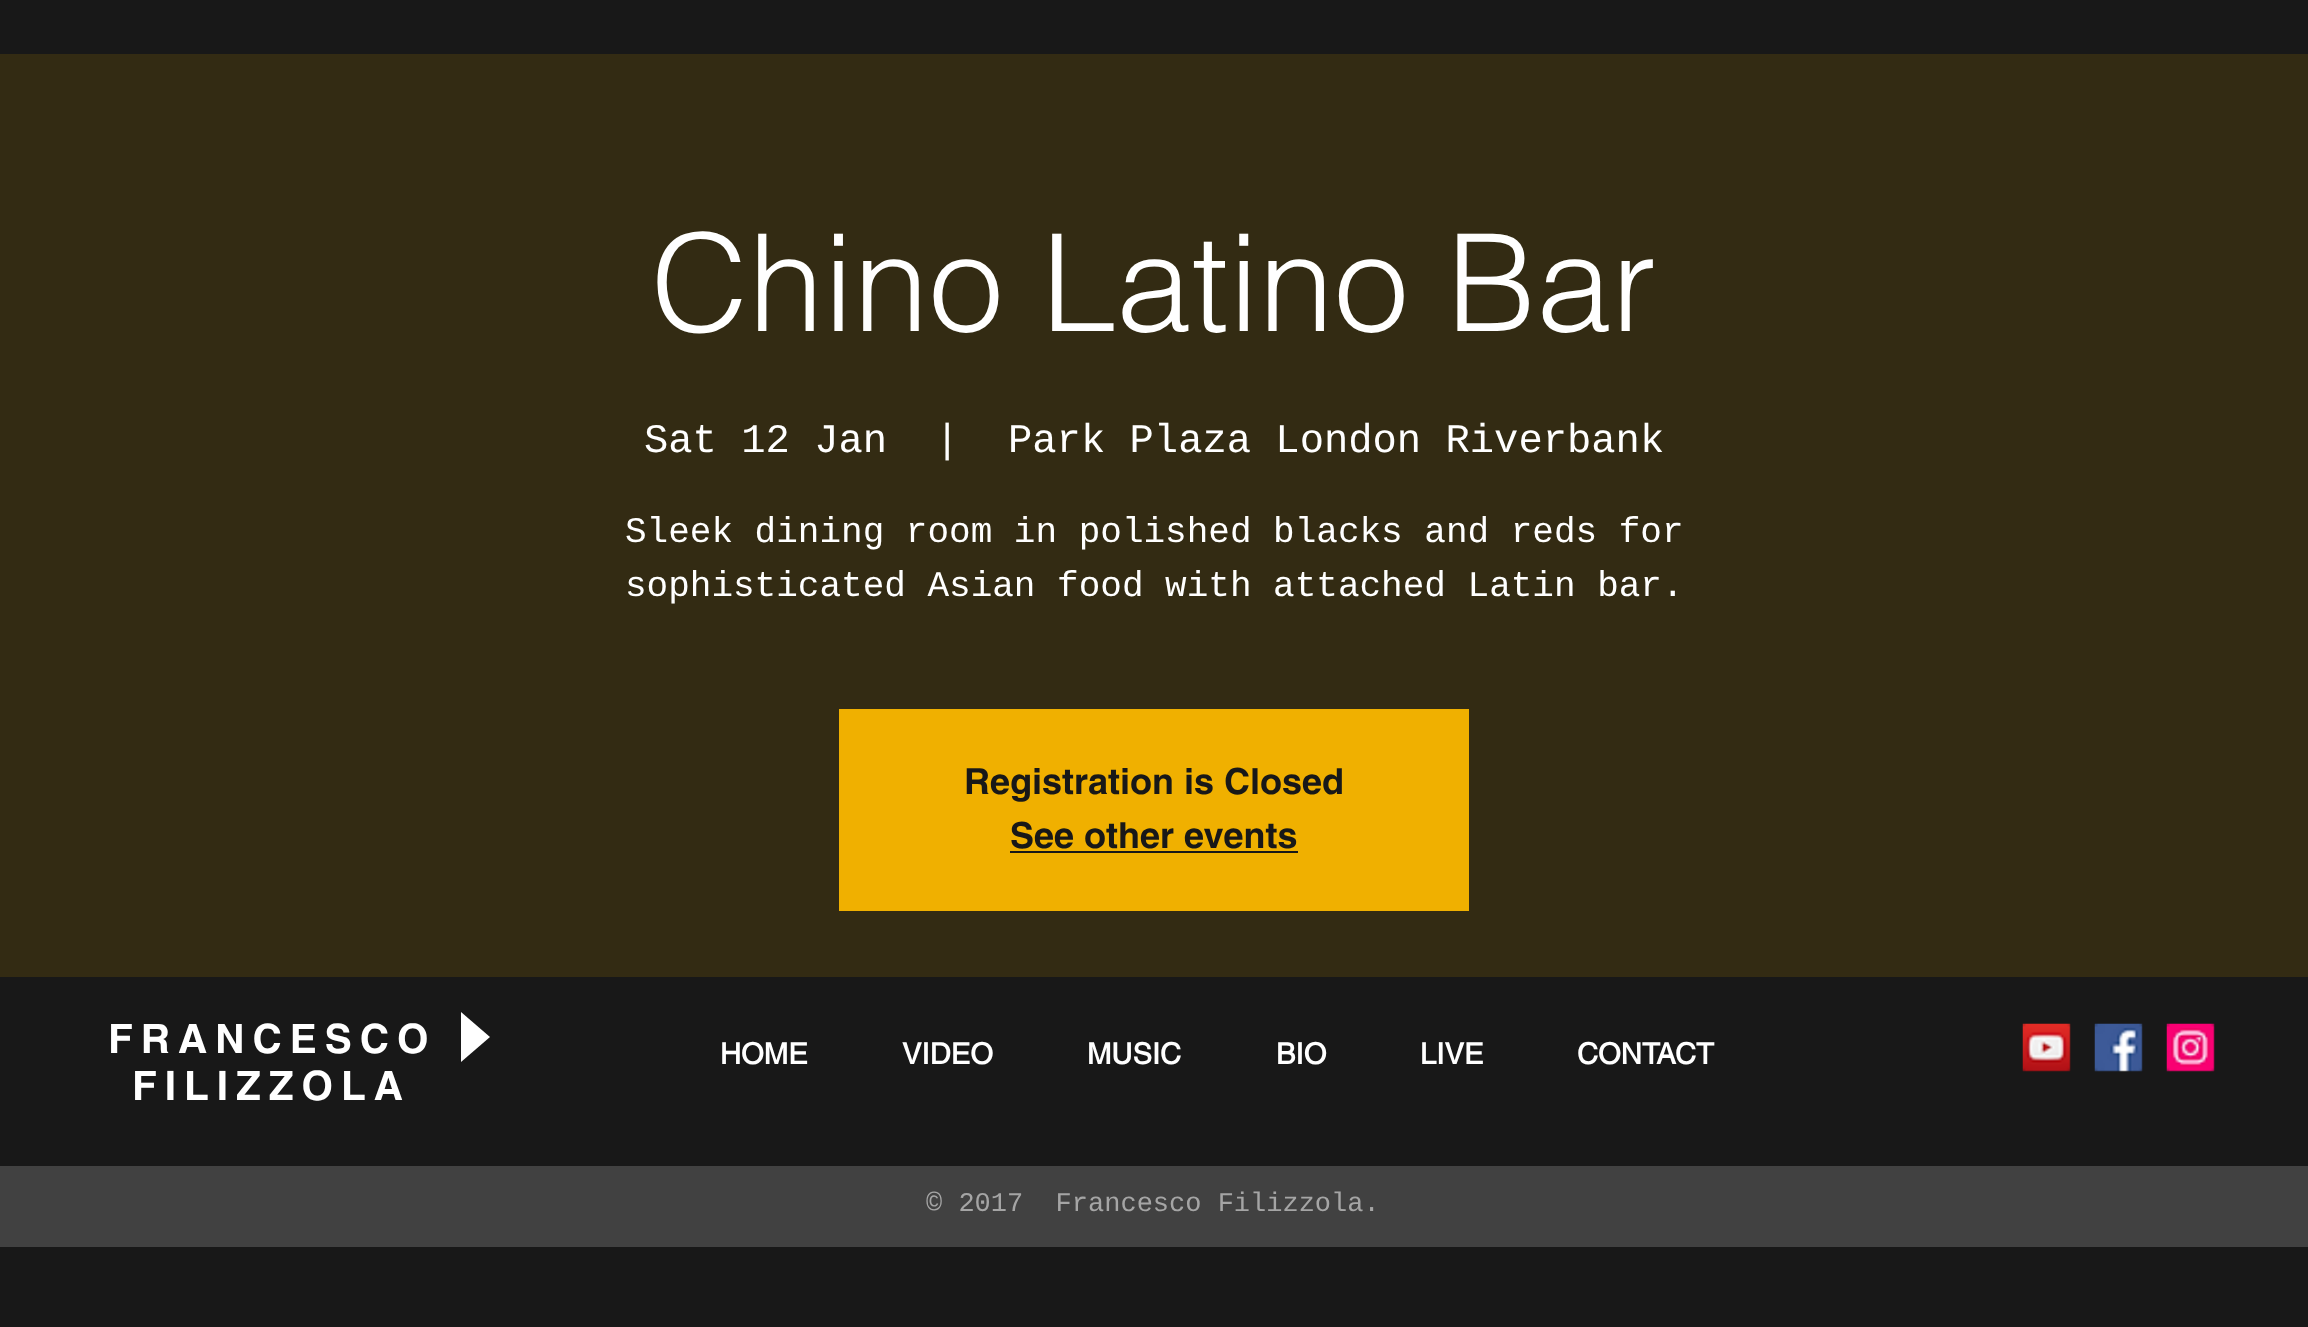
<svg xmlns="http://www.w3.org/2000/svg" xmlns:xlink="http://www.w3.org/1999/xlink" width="2308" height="1327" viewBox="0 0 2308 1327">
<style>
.cls-1{font:300 135px helvetica;fill:#ffffff}
.cls-2{font:40.5px Liberation Mono;fill:#ffffff}
.cls-3{font:36px Liberation Mono;fill:#ffffff}
.cls-4{font:bold 36px helvetica;fill:#181818}
.cls-5{font:bold 40.5px helvetica;letter-spacing:8px;fill:#ffffff}
.cls-6{font:bold 29.25px 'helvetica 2';fill:#ffffff}
.cls-7{font:27px Liberation Mono;fill:#a5a5a5}
</style>
<rect width="100%" height="100%" fill="#181818"/>
<rect fill="#332b13" x="0" y="54" width="2308" height="923"/>
<rect fill="#f0b000" x="839" y="709" width="630" height="202"/>
<rect fill="#181818" x="1010" y="851" width="288" height="2"/>
<path fill="#ffffff" d="M461 1062V1012L490 1037Z"/>
<image xlink:href="image0.png" x="2022" y="1023" width="49" height="49"/>
<image xlink:href="image1.png" x="2094" y="1023" width="49" height="49"/>
<image xlink:href="image2.png" x="2166" y="1023" width="49" height="49"/>
<rect fill="#414141" x="0" y="1166" width="2308" height="81"/>
<text class="cls-1" x="651" y="331">Chino Latino Bar</text>
<text class="cls-2" x="644" y="452">Sat 12 Jan</text>
<text class="cls-2" x="935" y="452">|</text>
<text class="cls-2" x="1008" y="452">Park Plaza London Riverbank</text>
<text class="cls-3"><tspan x="625" y="542">Sleek dining room in polished blacks and reds for</tspan><tspan x="625" y="596">sophisticated Asian food with attached Latin bar.</tspan></text>
<text class="cls-4" x="964" y="794">Registration is Closed</text>
<text class="cls-4" x="1010" y="848">See other events</text>
<text class="cls-5" x="108" y="1053">FRANCESCO</text>
<text class="cls-5" x="132" y="1100">FILIZZOLA</text>
<text class="cls-6" x="720" y="1064">HOME</text>
<text class="cls-6" x="902" y="1064">VIDEO</text>
<text class="cls-6" x="1087" y="1064">MUSIC</text>
<text class="cls-6" x="1276" y="1064">BIO</text>
<text class="cls-6" x="1420" y="1064">LIVE</text>
<text class="cls-6" x="1577" y="1064">CONTACT</text>
<text class="cls-7" xml:space="preserve" x="926" y="1211">© 2017  Francesco Filizzola.</text>
</svg>
